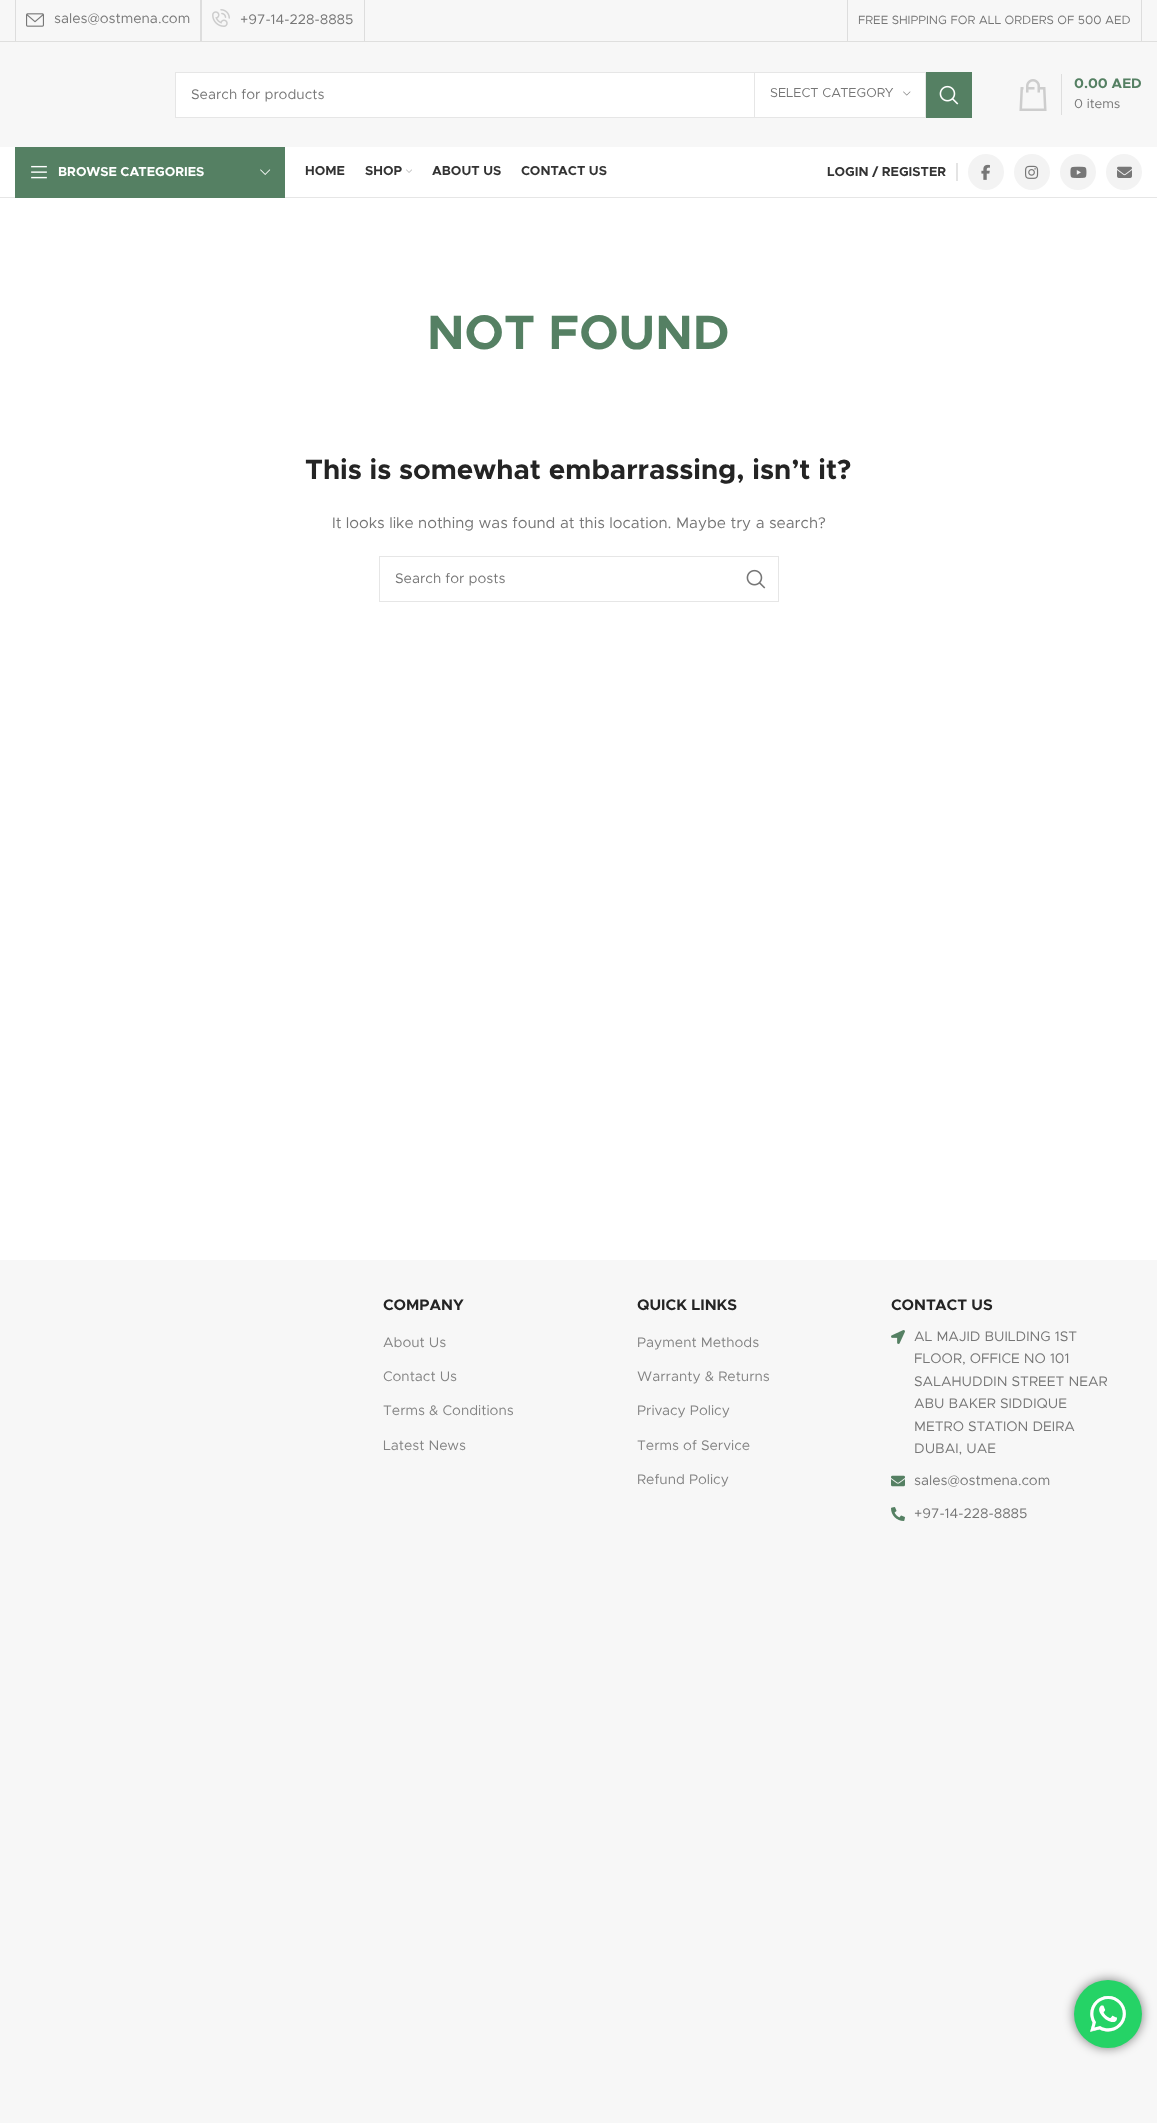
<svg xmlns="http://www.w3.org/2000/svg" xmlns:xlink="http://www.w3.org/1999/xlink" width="1157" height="2123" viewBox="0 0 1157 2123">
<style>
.cls-1{font:14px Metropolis;fill:#767676}
.cls-2{font:12px Metropolis;fill:#767676}
.cls-3{font:13px Metropolis;fill:#767676}
.cls-4{font:bold 14px Metropolis;fill:#558063}
.cls-5{font:bold 13px Metropolis;fill:#ffffff}
.cls-6{font:bold 13px Metropolis;fill:#333333}
.cls-7{font:bold 48.5px Metropolis;fill:#558063}
.cls-8{font:bold 28px Metropolis;fill:#242424}
.cls-9{font:15.4px Metropolis;fill:#767676}
.cls-10{font:bold 15.4px Metropolis;fill:#242424}
.cls-11{font:14px Metropolis;fill:#838383}
</style>
<rect width="100%" height="100%" fill="#ffffff"/>
<rect fill="#f7f7f7" x="0" y="0" width="1157" height="41"/>
<rect fill="#dfdfde" x="0" y="41" width="1157" height="1"/>
<rect fill="#dddddd" x="15" y="0" width="1" height="41"/>
<image xlink:href="image0.png" x="26" y="13" width="18" height="14"/>
<rect fill="#dddddd" x="200" y="0" width="2" height="41"/>
<image xlink:href="image1.png" x="212" y="9" width="18" height="18"/>
<rect fill="#dddddd" x="364" y="0" width="1" height="41"/>
<rect fill="#dddddd" x="847" y="0" width="1" height="41"/>
<rect fill="#dddddd" x="1141" y="0" width="1" height="41"/>
<rect fill="#f7f7f7" x="0" y="42" width="1157" height="105"/>
<rect fill="#ffffff" x="176" y="73" width="749" height="44"/>
<rect fill="none" stroke="#e6e6e6" x="175.5" y="72.5" width="796" height="45"/>
<rect fill="#e6e6e6" x="925" y="73" width="1" height="44"/>
<rect fill="#e6e6e6" x="754" y="73" width="1" height="44"/>
<image xlink:href="image2.png" x="903" y="91" width="8" height="5"/>
<rect fill="#558063" x="926" y="72" width="46" height="46"/>
<image xlink:href="image3.png" x="939" y="85" width="20" height="20"/>
<image xlink:href="image4.png" x="1019" y="79" width="28" height="32"/>
<rect fill="#dedede" x="1061" y="74" width="1" height="41"/>
<rect fill="#e6e6e6" x="0" y="197" width="1157" height="1"/>
<rect fill="#558063" x="15" y="147" width="270" height="51"/>
<image xlink:href="image5.png" x="31" y="165" width="16" height="14"/>
<image xlink:href="image6.png" x="260" y="169" width="11" height="6"/>
<image xlink:href="image7.png" x="406" y="169" width="6" height="4"/>
<rect fill="#e4e4e4" x="956" y="163" width="2" height="18"/>
<circle fill="#f3f3f3" cx="986" cy="172" r="18"/>
<image xlink:href="image8.png" x="981" y="164" width="9" height="16"/>
<circle fill="#f3f3f3" cx="1032" cy="172" r="18"/>
<image xlink:href="image9.png" x="1025" y="165" width="14" height="14"/>
<circle fill="#f3f3f3" cx="1078" cy="172" r="18"/>
<image xlink:href="image10.png" x="1070" y="166" width="17" height="12"/>
<circle fill="#f3f3f3" cx="1124" cy="172" r="18"/>
<image xlink:href="image11.png" x="1117" y="166" width="15" height="12"/>
<rect fill="none" stroke="#e6e6e6" x="379.5" y="556.5" width="399" height="45"/>
<image xlink:href="image12.png" x="746" y="569" width="20" height="20"/>
<rect fill="#f7f7f7" x="0" y="1260" width="1157" height="863"/>
<image xlink:href="image13.png" x="891" y="1330" width="14" height="14"/>
<image xlink:href="image14.png" x="891" y="1475" width="14" height="12"/>
<image xlink:href="image15.png" x="891" y="1507" width="14" height="14"/>
<rect fill="#000000" fill-opacity="0.5" filter="blur(5.5px)" x="1074" y="1980" width="68" height="68" rx="34"/>
<circle fill="#25d366" cx="1108" cy="2014" r="34"/>
<image xlink:href="image16.png" x="1090" y="1996" width="36" height="36"/>
<text class="cls-1" x="54" y="23">sales@ostmena.com</text>
<text class="cls-1" x="240" y="24">+97-14-228-8885</text>
<text class="cls-2" x="858" y="24">FREE SHIPPING FOR ALL ORDERS OF 500 AED</text>
<text class="cls-1" x="191" y="99">Search for products</text>
<text class="cls-3" x="770" y="97">SELECT CATEGORY</text>
<text class="cls-4" x="1074" y="88">0.00 AED</text>
<text class="cls-3" x="1074" y="108">0 items</text>
<text class="cls-5" x="58" y="176">BROWSE CATEGORIES</text>
<text class="cls-6" x="305" y="175">HOME</text>
<text class="cls-6" x="365" y="175">SHOP</text>
<text class="cls-6" x="432" y="175">ABOUT US</text>
<text class="cls-6" x="521" y="175">CONTACT US</text>
<text class="cls-6" x="827" y="176">LOGIN / REGISTER</text>
<text class="cls-7" x="427" y="349">NOT FOUND</text>
<text class="cls-8" x="305" y="479">This is somewhat embarrassing, isn’t it?</text>
<text class="cls-9" x="332" y="528">It looks like nothing was found at this location. Maybe try a search?</text>
<text class="cls-1" x="395" y="583">Search for posts</text>
<text class="cls-10" x="383" y="1310">COMPANY</text>
<text class="cls-11" x="383" y="1347">About Us</text>
<text class="cls-11" x="383" y="1381">Contact Us</text>
<text class="cls-11" x="383" y="1415">Terms &amp; Conditions</text>
<text class="cls-11" x="383" y="1450">Latest News</text>
<text class="cls-10" x="637" y="1310">QUICK LINKS</text>
<text class="cls-11" x="637" y="1347">Payment Methods</text>
<text class="cls-11" x="637" y="1381">Warranty &amp; Returns</text>
<text class="cls-11" x="637" y="1415">Privacy Policy</text>
<text class="cls-11" x="637" y="1450">Terms of Service</text>
<text class="cls-11" x="637" y="1484">Refund Policy</text>
<text class="cls-10" x="891" y="1310">CONTACT US</text>
<text class="cls-1"><tspan x="914" y="1341">AL MAJID BUILDING 1ST</tspan><tspan x="914" y="1363">FLOOR, OFFICE NO 101</tspan><tspan x="914" y="1386">SALAHUDDIN STREET NEAR</tspan><tspan x="914" y="1408">ABU BAKER SIDDIQUE</tspan><tspan x="914" y="1431">METRO STATION DEIRA</tspan><tspan x="914" y="1453">DUBAI, UAE</tspan></text>
<text class="cls-1" x="914" y="1485">sales@ostmena.com</text>
<text class="cls-1" x="914" y="1518">+97-14-228-8885</text>
</svg>
